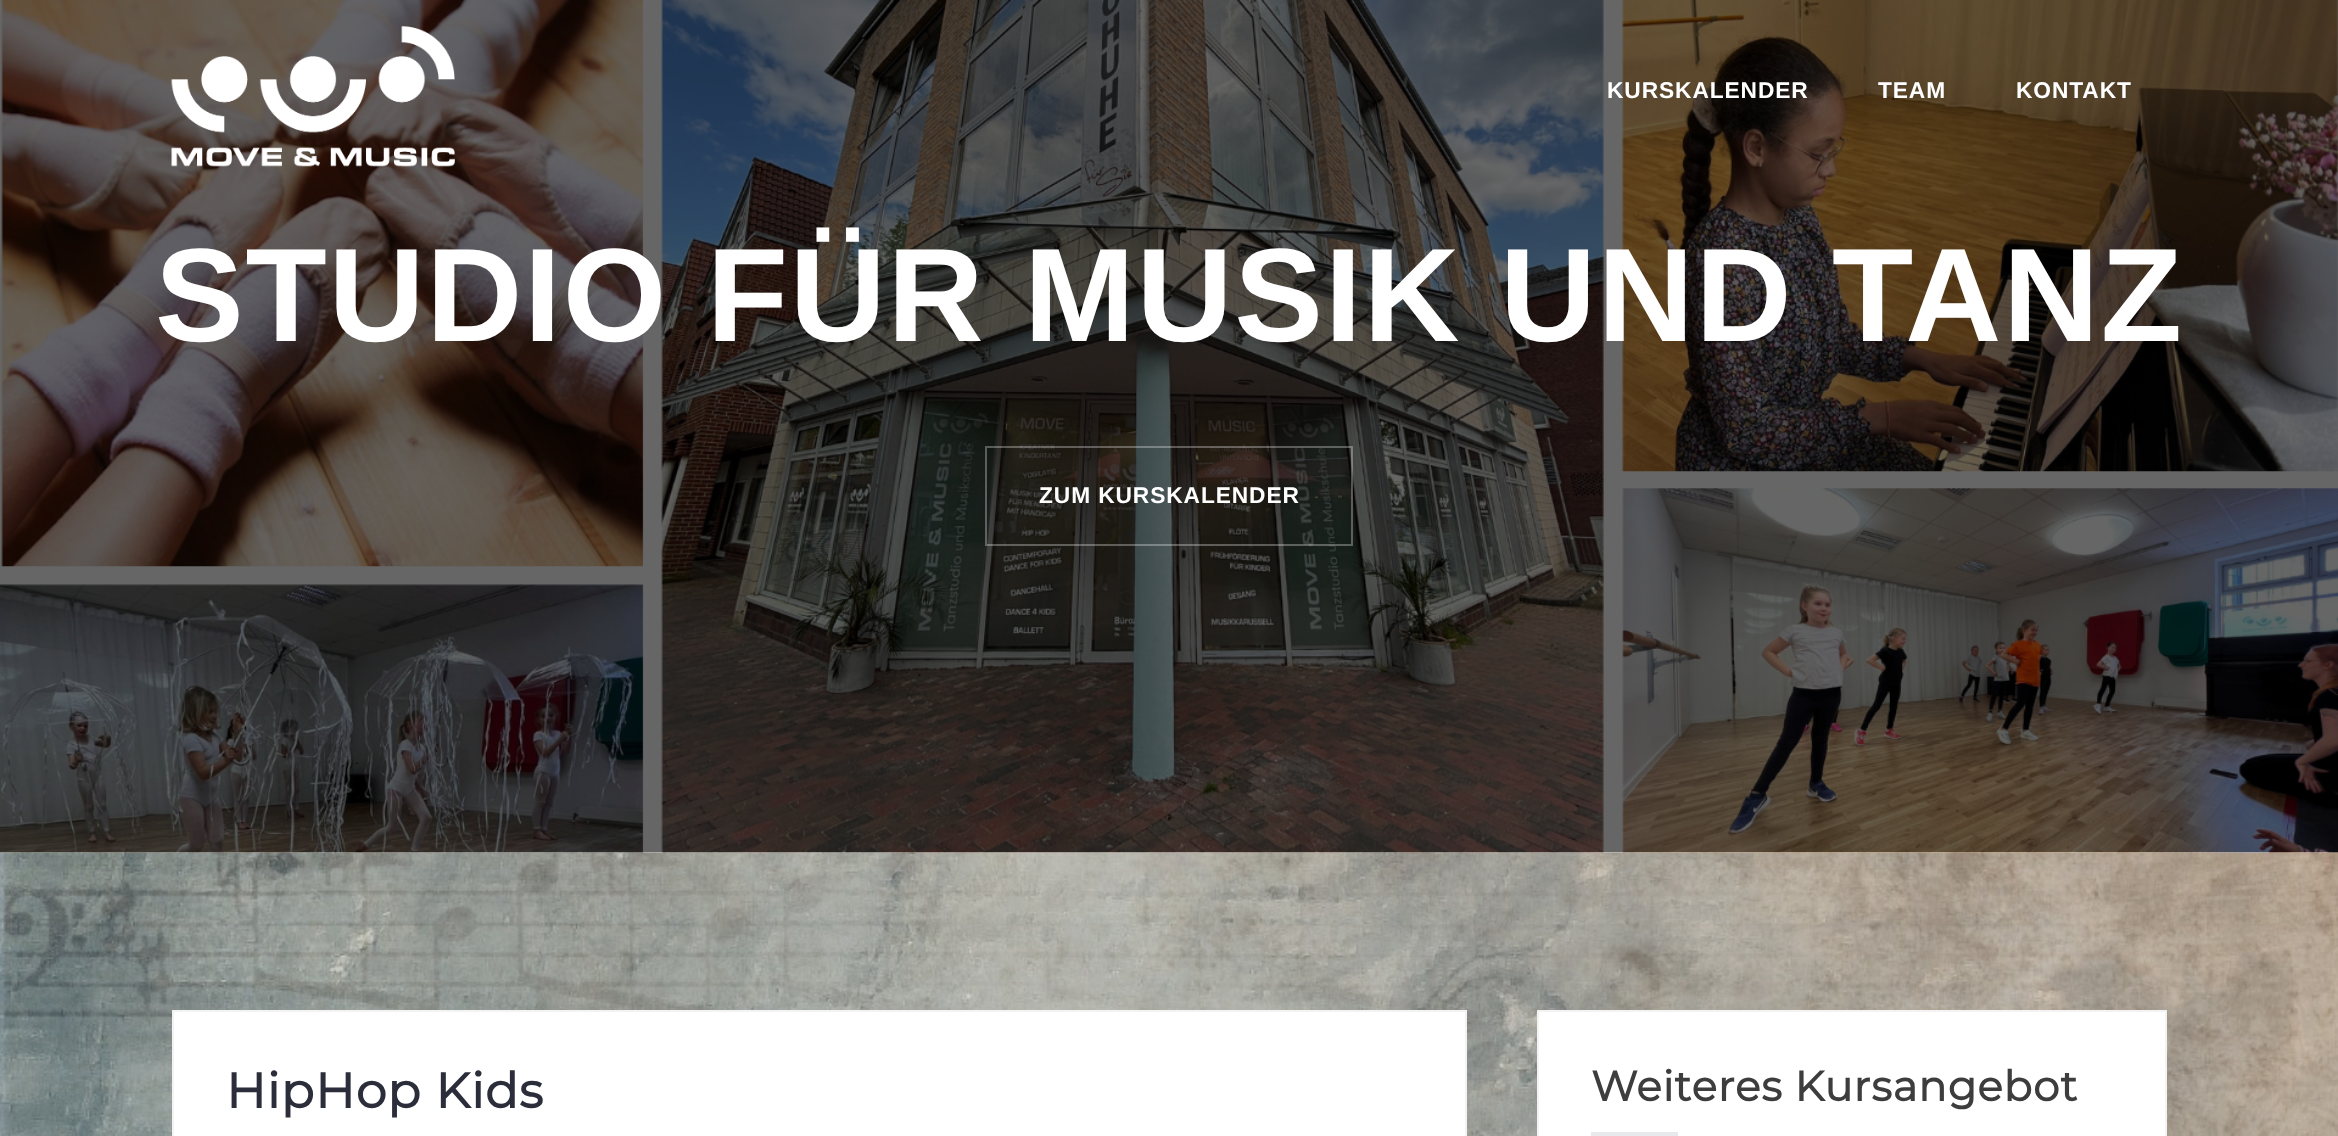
<svg xmlns="http://www.w3.org/2000/svg" xmlns:xlink="http://www.w3.org/1999/xlink" width="2338" height="1136" viewBox="0 0 2338 1136">
<style>
.cls-1{font:bold 22.75px Liberation Sans;letter-spacing:0.9px;fill:#ffffff}
.cls-2{font:bold 133px Liberation Sans;letter-spacing:1.75px;fill:#ffffff}
.cls-3{font:bold 49px Montserrat;letter-spacing:0.9px;fill:#2b2d3a}
.cls-4{font:bold 42px Montserrat;letter-spacing:0.9px;fill:#3d3d3d}
</style>
<rect width="100%" height="100%" fill="#ffffff"/>
<image xlink:href="image0.png" x="0" y="852" width="2338" height="284"/>
<image xlink:href="image2.png" x="0" y="0" width="2338" height="853"/>
<image xlink:href="image1.png" x="171" y="26" width="284" height="141"/>
<rect fill="none" stroke="#ffffff" stroke-opacity="0.3" stroke-width="2" x="986" y="447" width="366" height="98"/>
<rect fill="#ffffff" stroke="#f3f3f3" stroke-width="2" x="173" y="1011" width="1293" height="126"/>
<rect fill="#ffffff" stroke="#f3f3f3" stroke-width="2" x="1538" y="1011" width="628" height="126"/>
<rect fill="#e8e9ea" x="1591" y="1132" width="87" height="4"/>
<text class="cls-1" x="1607" y="98">KURSKALENDER</text>
<text class="cls-1" x="1878" y="98">TEAM</text>
<text class="cls-1" x="2016" y="98">KONTAKT</text>
<text class="cls-2" x="155" y="341">STUDIO FÜR MUSIK UND TANZ</text>
<text class="cls-1" x="1039" y="503">ZUM KURSKALENDER</text>
<text class="cls-3" x="226" y="1108">HipHop Kids</text>
<text class="cls-4" x="1591" y="1101">Weiteres Kursangebot</text>
</svg>
